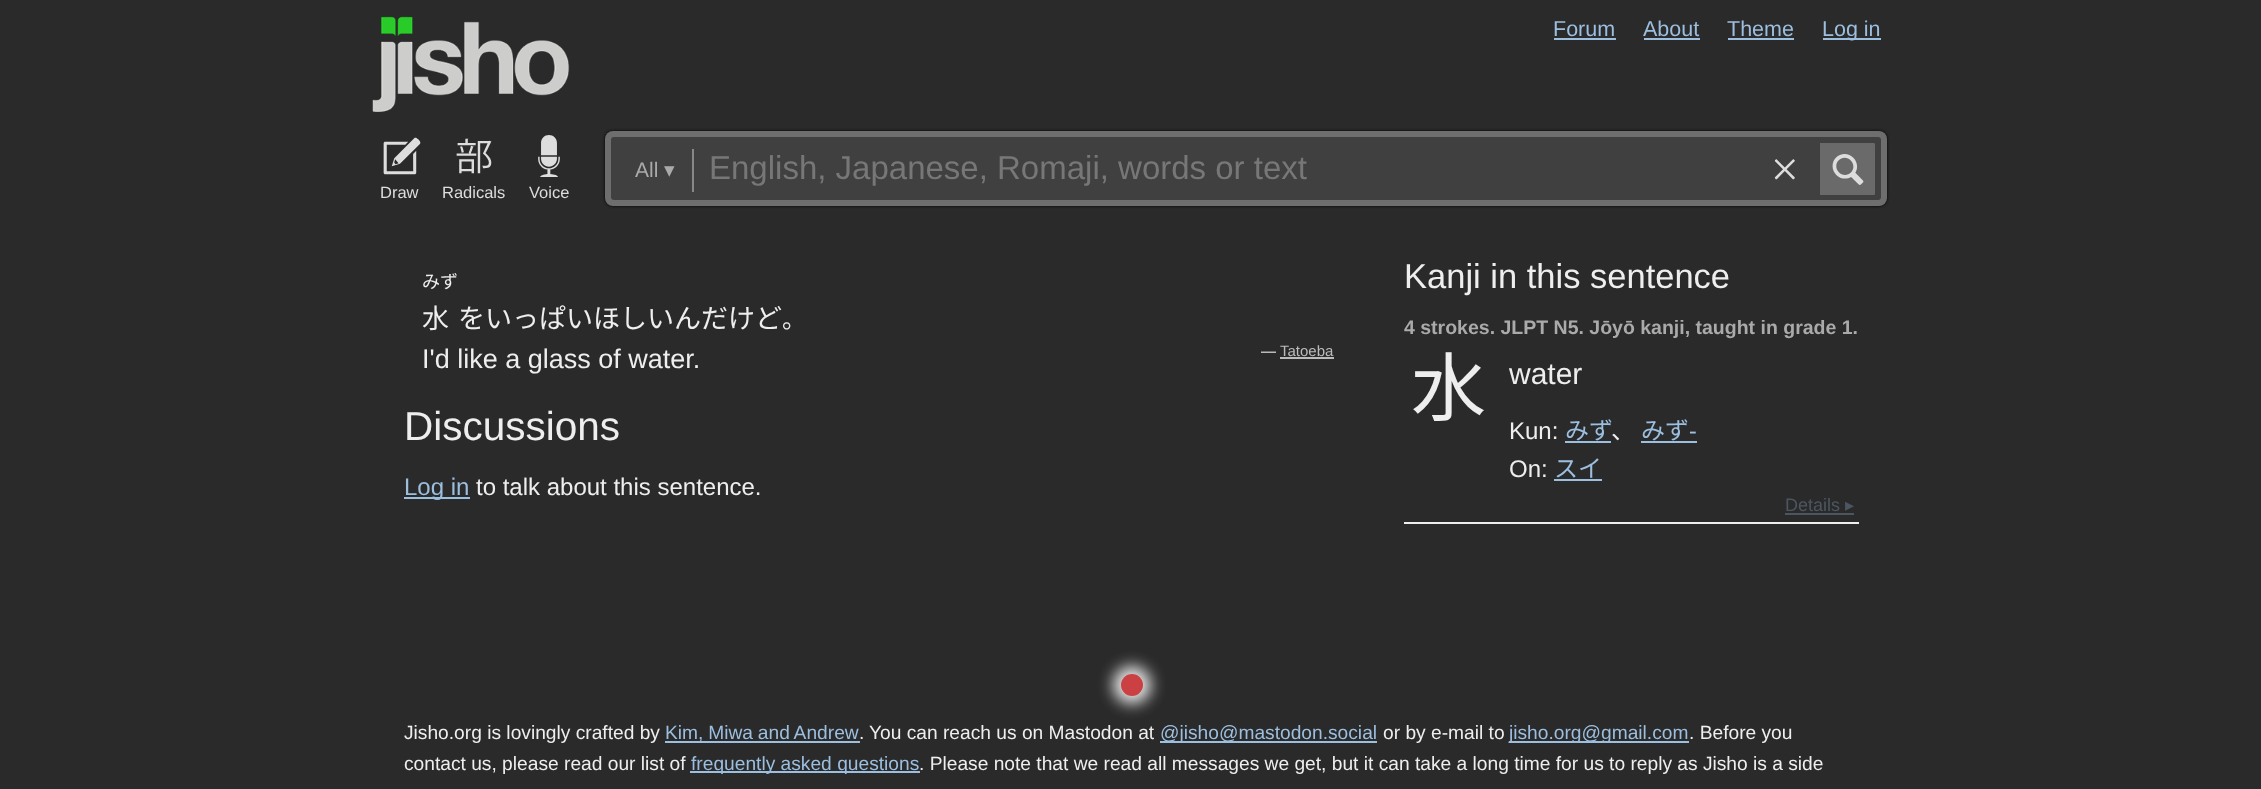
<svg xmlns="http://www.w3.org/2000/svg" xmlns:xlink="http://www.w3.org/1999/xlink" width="2261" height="789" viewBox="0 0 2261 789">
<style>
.cls-1{font:21.5px Liberation Sans;fill:#9cbedf}
.cls-2{font:21px Liberation Sans;fill:#aaaaaa}
.cls-3{font:21px DejaVu Sans;fill:#aaaaaa}
.cls-4{font:33px Liberation Sans;fill:#777777}
.cls-5{font:16.5px Liberation Sans;fill:#dddddd}
.cls-6{font:18px Noto Sans CJK JP;fill:#eeeeee}
.cls-7{font:27px Noto Sans CJK JP;fill:#eeeeee}
.cls-8{font:24px Noto Sans CJK JP;fill:#eeeeee}
.cls-9{font:27px Liberation Sans;fill:#eeeeee}
.cls-10{font:15px Liberation Sans;fill:#eeeeee}
.cls-11{font:15px Liberation Sans;fill:#bbbbbb}
.cls-12{font:40.5px Liberation Sans;fill:#eeeeee}
.cls-13{font:24px Liberation Sans;fill:#9cbedf}
.cls-14{font:24px Liberation Sans;fill:#eeeeee}
.cls-15{font:34.5px Liberation Sans;fill:#eeeeee}
.cls-16{font:bold 19.5px Liberation Sans;fill:#aaaaaa}
.cls-17{font:75px Noto Sans CJK JP;fill:#eeeeee}
.cls-18{font:30px Liberation Sans;fill:#eeeeee}
.cls-19{font:24px Noto Sans CJK JP;fill:#9cbedf}
.cls-20{font:24px Noto Sans;fill:#9cbedf}
.cls-21{font:18px Liberation Sans;fill:#4c5660}
.cls-22{font:18px DejaVu Sans;fill:#4c5660}
.cls-23{font:19.2px Liberation Sans;fill:#eeeeee}
.cls-24{font:19.2px Liberation Sans;fill:#9cbedf}
</style>
<rect width="100%" height="100%" fill="#2a2a2a"/>
<image xlink:href="image0.png" x="372" y="16" width="198" height="96"/>
<rect fill="#9cbedf" x="1554" y="38" width="62" height="2"/>
<rect fill="#9cbedf" x="1644" y="38" width="56" height="2"/>
<rect fill="#9cbedf" x="1728" y="38" width="66" height="2"/>
<rect fill="#9cbedf" x="1823" y="38" width="58" height="2"/>
<rect fill="#000000" filter="blur(1.5px)" x="605" y="131" width="1282" height="75" rx="8"/>
<rect fill="#6e6e6e" x="605" y="131" width="1282" height="75" rx="8"/>
<rect fill="#404040" x="611" y="137" width="1270" height="63" rx="3"/>
<rect fill="#888888" x="692" y="149" width="2" height="43"/>
<image xlink:href="image1.png" x="1774" y="159" width="21" height="21"/>
<path fill="#6a6a6a" d="M1820 143H1873.5C1874.5 143 1875 143.5 1875 144.5V193.5C1875 194.5 1874.5 195 1873.5 195H1820Z"/>
<image xlink:href="image2.png" x="1832" y="154" width="32" height="31"/>
<image xlink:href="image3.png" x="383" y="137" width="38" height="38"/>
<image xlink:href="image4.png" x="456" y="138" width="36" height="36"/>
<image xlink:href="image5.png" x="538" y="135" width="22" height="42"/>
<rect fill="#bbbbbb" x="1280" y="357" width="54" height="2"/>
<rect fill="#9cbedf" x="404" y="497" width="66" height="2"/>
<rect fill="#eeeeee" x="1404" y="522" width="455" height="2"/>
<rect fill="#9cbedf" x="1641" y="441" width="56" height="2"/>
<rect fill="#9cbedf" x="1565" y="441" width="46" height="2"/>
<rect fill="#9cbedf" x="1554" y="479" width="48" height="2"/>
<rect fill="#4c5660" x="1785" y="513" width="69" height="2"/>
<rect fill="#ffffff" fill-opacity="0.9" filter="blur(7.5px)" x="1113" y="666" width="38" height="38" rx="19"/>
<circle fill="#cb4042" cx="1132" cy="685" r="11"/>
<rect fill="#9cbedf" x="665" y="741" width="195" height="2"/>
<rect fill="#9cbedf" x="1160" y="741" width="217" height="2"/>
<rect fill="#9cbedf" x="1509" y="741" width="180" height="2"/>
<rect fill="#9cbedf" x="690" y="771" width="230" height="2"/>
<text class="cls-1" x="1553" y="36">Forum</text>
<text class="cls-1" x="1643" y="36">About</text>
<text class="cls-1" x="1727" y="36">Theme</text>
<text class="cls-1" x="1822" y="36">Log in</text>
<text class="cls-2" x="635" y="177">All</text>
<text class="cls-3" x="664" y="177">▾</text>
<text class="cls-4" x="709" y="179">English, Japanese, Romaji, words or text</text>
<text class="cls-5" x="380" y="198">Draw</text>
<text class="cls-5" x="442" y="198">Radicals</text>
<text class="cls-5" x="529" y="198">Voice</text>
<text class="cls-6" x="422" y="288">みず</text>
<text class="cls-7" x="422" y="328">水</text>
<text class="cls-7" x="458" y="328">をいっぱいほしいんだけど</text>
<text class="cls-8" x="782" y="328">。</text>
<text class="cls-9" x="422" y="368">I'd like a glass of water.</text>
<text class="cls-10" x="1261" y="356">—</text>
<text class="cls-11" x="1280" y="356">Tatoeba</text>
<text class="cls-12" x="404" y="440">Discussions</text>
<text class="cls-13" x="404" y="495">Log in</text>
<text class="cls-14" x="476" y="495">to talk about this sentence.</text>
<text class="cls-15" x="1404" y="288">Kanji in this sentence</text>
<text class="cls-16" x="1404" y="334">4 strokes. JLPT N5. Jōyō kanji, taught in grade 1.</text>
<text class="cls-17" x="1411" y="415">水</text>
<text class="cls-18" x="1509" y="384">water</text>
<text class="cls-14" x="1509" y="439">Kun:</text>
<text class="cls-19" x="1565" y="439">みず</text>
<text class="cls-19" x="1641" y="439">みず</text>
<text class="cls-20" x="1689" y="439">-</text>
<text class="cls-8" x="1611" y="439">、</text>
<text class="cls-14" x="1509" y="477">On:</text>
<text class="cls-19" x="1554" y="477">スイ</text>
<text class="cls-21" x="1785" y="511">Details</text>
<text class="cls-22" x="1845" y="511">▸</text>
<text class="cls-23" x="404" y="739">Jisho.org is lovingly crafted by</text>
<text class="cls-24" x="665" y="739" word-spacing="-0.5">Kim, Miwa and Andrew</text>
<text class="cls-23" x="859" y="739">.</text>
<text class="cls-23" x="869" y="739">You can reach us on Mastodon at</text>
<text class="cls-24" x="1160" y="739">@jisho@mastodon.social</text>
<text class="cls-23" x="1383" y="739">or by e-mail to</text>
<text class="cls-24" x="1509" y="739">jisho.org@gmail.com</text>
<text class="cls-23" x="1689" y="739">. Before you</text>
<text class="cls-23" x="404" y="770">contact us, please read our list of</text>
<text class="cls-24" x="691" y="770">frequently asked questions</text>
<text class="cls-23" x="919" y="770">. Please note that we read all messages we get, but it can take a long time for us to reply as Jisho is a side</text>
</svg>
